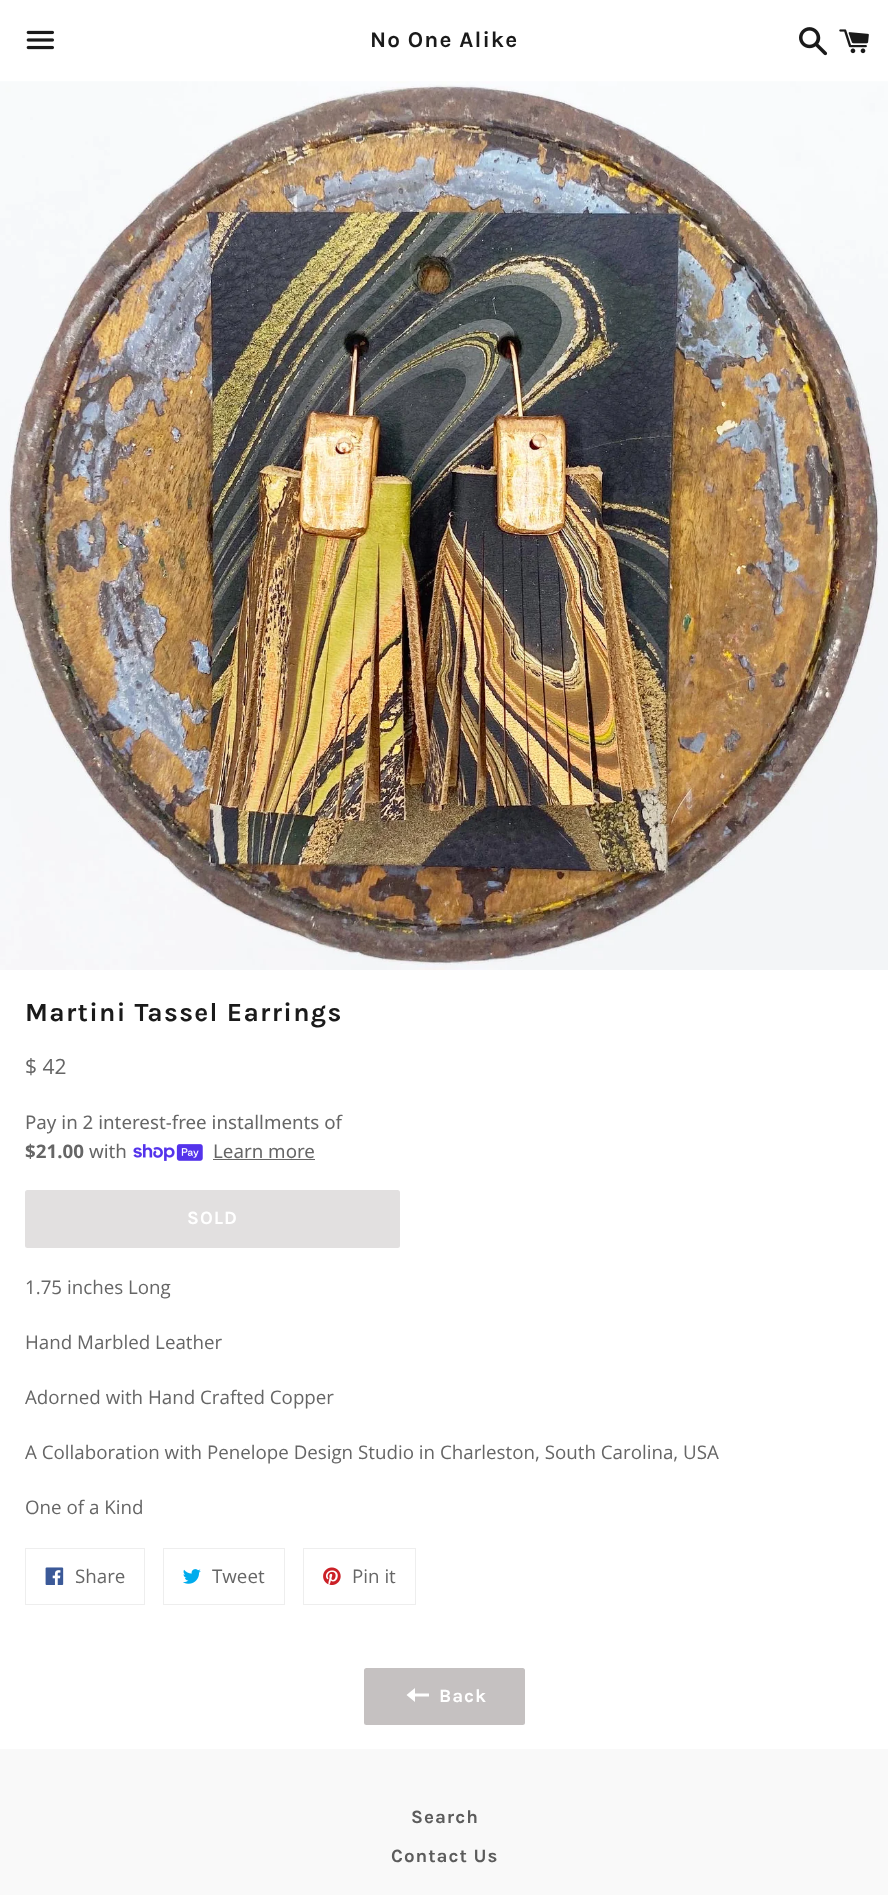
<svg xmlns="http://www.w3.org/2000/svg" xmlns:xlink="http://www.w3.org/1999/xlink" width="888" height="1895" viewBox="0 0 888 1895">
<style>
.cls-1{font:bold 22.5px Karla;letter-spacing:1.1px;fill:#1a1a1a}
.cls-2{font:bold 26.25px Karla;letter-spacing:1.3px;fill:#1a1a1a}
.cls-3{font:21px Open Sans;fill:#666666}
.cls-4{font:18.75px Noto Sans;fill:#666666}
.cls-5{font:bold 18.75px Noto Sans;fill:#666666}
.cls-6{font:bold 18.75px Karla;letter-spacing:1px;fill:#ffffff}
.cls-7{font:18.75px Open Sans;fill:#666666}
.cls-8{font:bold 18.75px Karla;letter-spacing:1px;fill:#5c5c5c}
</style>
<rect width="100%" height="100%" fill="#ffffff"/>
<image xlink:href="image0.png" x="26" y="30" width="28" height="20"/>
<image xlink:href="image1.png" x="799" y="27" width="29" height="29"/>
<image xlink:href="image2.png" x="839" y="29" width="30" height="25"/>
<image xlink:href="image3.png" x="0" y="81" width="888" height="889"/>
<image xlink:href="image4.png" x="133" y="1144" width="70" height="17"/>
<rect fill="#666666" x="213" y="1159" width="102" height="1"/>
<rect fill="#e2e0e0" x="25" y="1190" width="375" height="58" rx="2.5"/>
<rect fill="none" stroke="#eeeeee" x="25.5" y="1548.5" width="119" height="56"/>
<image xlink:href="image5.png" x="45" y="1567" width="19" height="18"/>
<rect fill="none" stroke="#eeeeee" x="163.5" y="1548.5" width="121" height="56"/>
<image xlink:href="image6.png" x="183" y="1569" width="18" height="15"/>
<rect fill="none" stroke="#eeeeee" x="303.5" y="1548.5" width="112" height="56"/>
<image xlink:href="image7.png" x="323" y="1567" width="18" height="18"/>
<rect fill="#c5c1c1" x="364" y="1668" width="161" height="57" rx="2.5"/>
<path fill="#ffffff" d="M415 1693.5V1688L406.5 1695L415 1702V1696.5H429V1693.5Z"/>
<rect fill="#f9f9f9" x="0" y="1749" width="888" height="146"/>
<text class="cls-1" x="370" y="47">No One Alike</text>
<text class="cls-2" x="25" y="1021">Martini Tassel Earrings</text>
<text class="cls-3" x="25" y="1074">$ 42</text>
<text class="cls-4" x="25" y="1129">Pay in 2 interest-free installments of</text>
<text class="cls-5" x="25" y="1158">$21.00</text>
<text class="cls-4" x="89" y="1158">with</text>
<text class="cls-4" x="213" y="1158">Learn more</text>
<text class="cls-6" x="187" y="1224">SOLD</text>
<text class="cls-7" x="25" y="1294">1.75 inches Long</text>
<text class="cls-7" x="25" y="1349">Hand Marbled Leather</text>
<text class="cls-7" x="25" y="1404">Adorned with Hand Crafted Copper</text>
<text class="cls-7" x="25" y="1459">A Collaboration with Penelope Design Studio in Charleston, South Carolina, USA</text>
<text class="cls-7" x="25" y="1514">One of a Kind</text>
<text class="cls-7" x="75" y="1583">Share</text>
<text class="cls-7" x="212" y="1583">Tweet</text>
<text class="cls-7" x="352" y="1583">Pin it</text>
<text class="cls-6" x="439" y="1702">Back</text>
<text class="cls-8" x="411" y="1823">Search</text>
<text class="cls-8" x="391" y="1862">Contact Us</text>
</svg>
